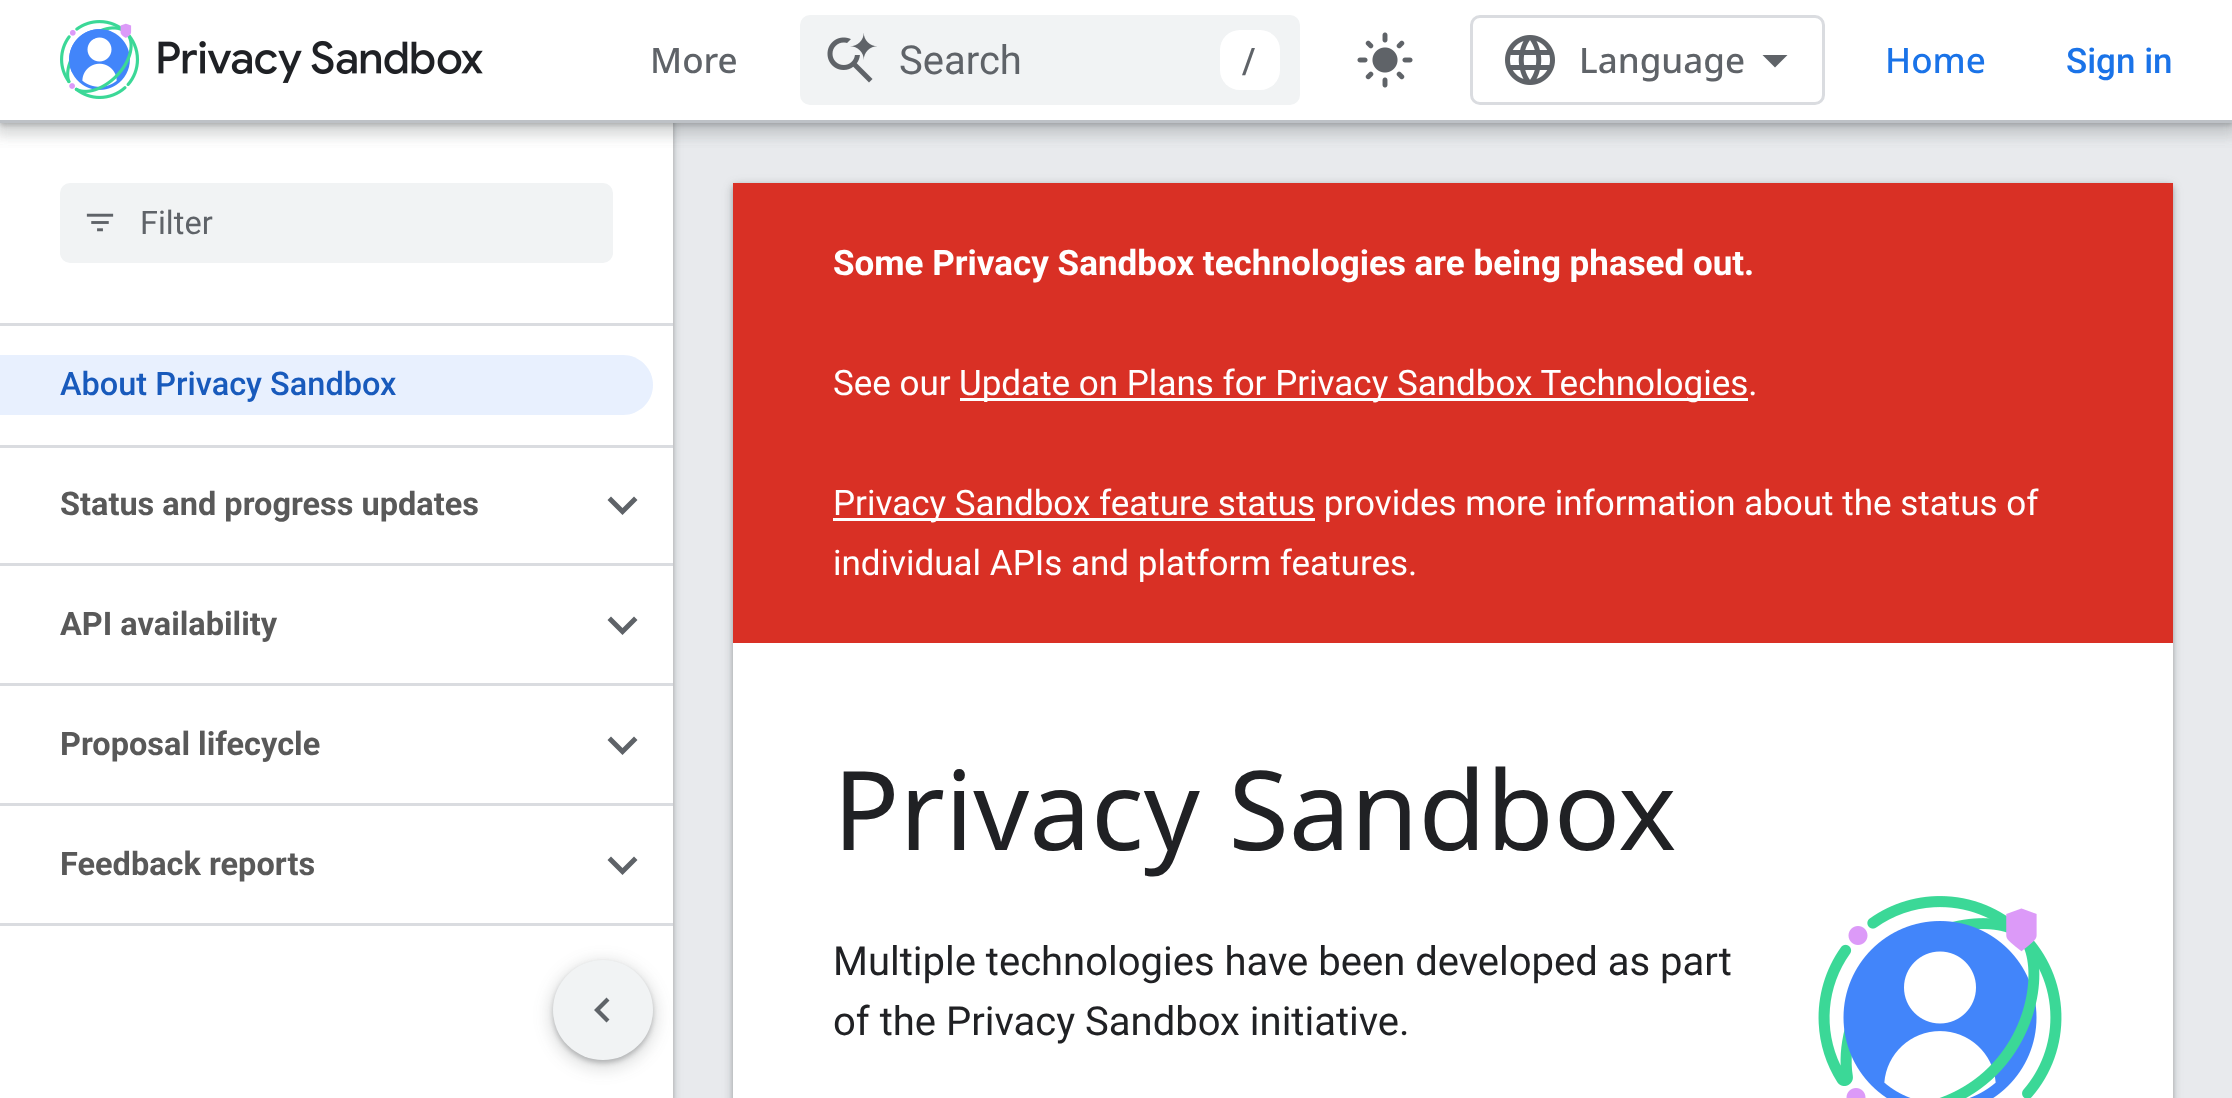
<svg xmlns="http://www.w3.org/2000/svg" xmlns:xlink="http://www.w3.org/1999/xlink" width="2232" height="1098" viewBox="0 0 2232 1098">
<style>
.cls-1{font:500 35px Noto Sans;fill:#5f6368}
.cls-2{font:40px Roboto;fill:#5f6368}
.cls-3{font:500 35px Roboto;fill:#5f6368}
.cls-4{font:500 35px Noto Sans;fill:#1a73e8}
.cls-5{font:500 35px Roboto;fill:#1a73e8}
.cls-6{font:32.5px Roboto;fill:#5f6368}
.cls-7{font:500 32.5px Roboto;fill:#185abc}
.cls-8{font:bold 32.5px Roboto;fill:#595959}
.cls-9{font:bold 35px Roboto;fill:#ffffff}
.cls-10{font:35px Roboto;fill:#ffffff}
.cls-11{font:110px Noto Sans;fill:#202124}
.cls-12{font:40px Roboto;fill:#202124}
</style>
<rect width="100%" height="100%" fill="#e8eaed"/>
<rect fill="#3c4043" fill-opacity="0.15" filter="blur(4px)" x="-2" y="0" width="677" height="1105"/>
<rect fill="#3c4043" fill-opacity="0.3" filter="blur(2.5px)" x="0" y="3" width="673" height="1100"/>
<rect fill="#ffffff" x="0" y="123" width="673" height="975"/>
<rect fill="#3c4043" fill-opacity="0.15" filter="blur(7.5px)" x="-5" y="0" width="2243" height="133"/>
<rect fill="#3c4043" fill-opacity="0.3" filter="blur(2.5px)" x="0" y="3" width="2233" height="122"/>
<rect fill="#3c4043" fill-opacity="0.15" filter="blur(7.5px)" x="-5" y="123" width="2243" height="10"/>
<rect fill="#ffffff" x="0" y="0" width="2232" height="120"/>
<rect fill="#bdc1c6" x="0" y="120" width="2232" height="3"/>
<image xlink:href="image0.png" x="60" y="20" width="423" height="79"/>
<rect fill="#f1f3f4" x="800" y="15" width="500" height="90" rx="10"/>
<image xlink:href="image1.png" x="827" y="33" width="50" height="50"/>
<rect fill="#ffffff" x="1220" y="30" width="60" height="60" rx="20"/>
<image xlink:href="image2.png" x="1357" y="32" width="56" height="56"/>
<rect fill="none" stroke="#dadce0" stroke-width="3" x="1471.5" y="16.5" width="352" height="87" rx="8.5"/>
<image xlink:href="image3.png" x="1505" y="35" width="50" height="50"/>
<path fill="#5f6368" d="M1775 67.5L1762.5 55H1787.5Z"/>
<rect fill="#dadce0" x="0" y="323" width="673" height="3"/>
<rect fill="#f1f3f4" x="60" y="183" width="553" height="80" rx="10"/>
<image xlink:href="image4.png" x="86" y="213" width="28" height="19"/>
<path fill="#e8f0fe" d="M0 355H623C639.5 355 653 368.5 653 385C653 401.5 639.5 415 623 415H0Z"/>
<rect fill="#dadce0" x="0" y="445" width="673" height="3"/>
<rect fill="#dadce0" x="0" y="563" width="673" height="3"/>
<path fill="#5f6368" d="M622.5 515L637.5 500L634 496.5L622.5 508L611 496.5L607.5 500Z"/>
<rect fill="#dadce0" x="0" y="683" width="673" height="3"/>
<path fill="#5f6368" d="M622.5 635L637.5 620L634 616.5L622.5 628L611 616.5L607.5 620Z"/>
<rect fill="#dadce0" x="0" y="803" width="673" height="3"/>
<path fill="#5f6368" d="M622.5 755L637.5 740L634 736.5L622.5 748L611 736.5L607.5 740Z"/>
<rect fill="#dadce0" x="0" y="923" width="673" height="3"/>
<path fill="#5f6368" d="M622.5 875L637.5 860L634 856.5L622.5 868L611 856.5L607.5 860Z"/>
<rect fill="#3c4043" fill-opacity="0.15" filter="blur(7.5px)" x="548" y="960" width="110" height="110" rx="55"/>
<rect fill="#3c4043" fill-opacity="0.3" filter="blur(2.5px)" x="553" y="963" width="100" height="100" rx="50"/>
<circle fill="#f1f3f4" cx="603" cy="1010" r="50"/>
<path fill="#5f6368" d="M609.5 1000.5L600 1010L609.5 1019.5L606.5 1022.5L594 1010L606.5 997.5Z"/>
<rect fill="#3c4043" fill-opacity="0.15" filter="blur(4px)" x="730" y="183" width="1445" height="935" rx="8"/>
<rect fill="#3c4043" fill-opacity="0.3" filter="blur(2.5px)" x="733" y="185" width="1440" height="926" rx="5"/>
<rect fill="#ffffff" x="733" y="643" width="1440" height="455"/>
<rect fill="#d93025" x="733" y="183" width="1440" height="460"/>
<rect fill="#ffffff" x="960" y="398" width="788" height="3"/>
<rect fill="#ffffff" x="833" y="518" width="482" height="3"/>
<image xlink:href="image5.png" x="1818" y="896" width="244" height="202"/>
<text class="cls-1" x="650" y="73">More</text>
<text class="cls-2" x="899" y="74">Search</text>
<text class="cls-3" x="1242" y="73">/</text>
<text class="cls-1" x="1579" y="73">Language</text>
<text class="cls-4" x="1885" y="73">Home</text>
<text class="cls-5" x="2066" y="73">Sign in</text>
<text class="cls-6" x="140" y="234">Filter</text>
<text class="cls-7" x="60" y="395">About Privacy Sandbox</text>
<text class="cls-8" x="60" y="515">Status and progress updates</text>
<text class="cls-8" x="60" y="635">API availability</text>
<text class="cls-8" x="60" y="755">Proposal lifecycle</text>
<text class="cls-8" x="60" y="875">Feedback reports</text>
<text class="cls-9" x="833" y="275">Some Privacy Sandbox technologies are being phased out.</text>
<text class="cls-10" x="833" y="395">See our</text>
<text class="cls-10" x="959" y="395">Update on Plans for Privacy Sandbox Technologies.</text>
<text class="cls-10"><tspan x="833" y="515">Privacy Sandbox feature status provides more information about the status of</tspan><tspan x="833" y="575">individual APIs and platform features.</tspan></text>
<text class="cls-11" x="833" y="850">Privacy Sandbox</text>
<text class="cls-12"><tspan x="833" y="975">Multiple technologies have been developed as part</tspan><tspan x="833" y="1035">of the Privacy Sandbox initiative.</tspan></text>
</svg>
